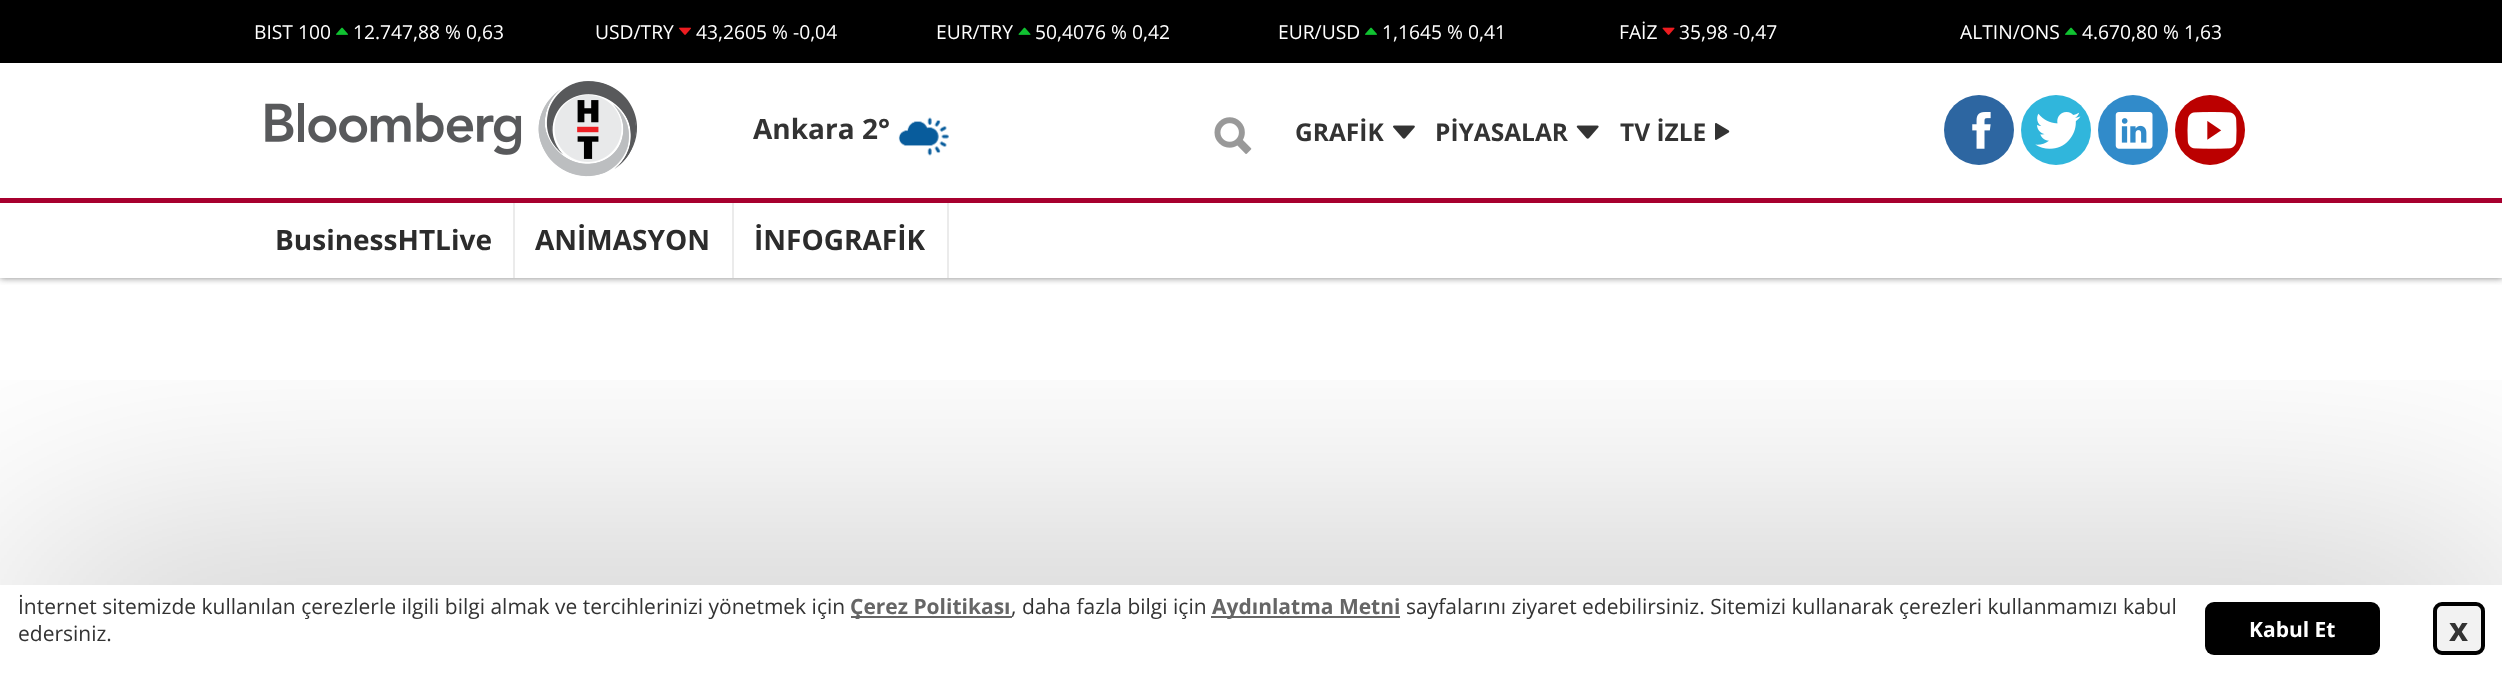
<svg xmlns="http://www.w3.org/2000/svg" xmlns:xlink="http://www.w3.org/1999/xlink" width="2502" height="673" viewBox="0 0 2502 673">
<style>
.cls-1{font:19.25px Open Sans;fill:#ffffff}
.cls-2{font:bold 28px Open Sans;fill:#333333}
.cls-3{font:bold 24.5px Open Sans;fill:#333333}
.cls-4{font:bold 28px Open Sans;fill:#2c2c2c}
.cls-5{font:21px Open Sans;fill:#333333}
.cls-6{font:bold 21px Open Sans;fill:#666666}
.cls-7{font:bold 21px Open Sans;fill:#ffffff}
.cls-8{font:bold 33px Open Sans;fill:#333333}
</style>
<defs>
<clipPath id="clip1"><rect x="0" y="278" width="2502" height="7"/></clipPath>
<clipPath id="clip2"><rect x="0" y="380" width="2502" height="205"/></clipPath>
</defs>
<rect width="100%" height="100%" fill="#ffffff"/>
<g clip-path="url(#clip1)">
<rect fill="#818181" filter="blur(3.5px)" x="0" y="0" width="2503" height="278"/>
</g>
<rect fill="#000000" x="0" y="0" width="2502" height="63"/>
<image xlink:href="image0.png" x="336" y="27" width="12" height="8"/>
<image xlink:href="image1.png" x="679" y="27" width="12" height="8"/>
<image xlink:href="image2.png" x="1018" y="27" width="13" height="8"/>
<image xlink:href="image0.png" x="1365" y="27" width="12" height="8"/>
<image xlink:href="image3.png" x="1662" y="27" width="13" height="8"/>
<image xlink:href="image0.png" x="2065" y="27" width="12" height="8"/>
<rect fill="#a7002f" x="0" y="198" width="2502" height="5"/>
<image xlink:href="image4.png" x="265" y="81" width="372" height="96"/>
<image xlink:href="image5.png" x="898" y="117" width="51" height="39"/>
<image xlink:href="image6.png" x="1214" y="117" width="38" height="37"/>
<image xlink:href="image7.png" x="1393" y="125" width="22" height="14"/>
<image xlink:href="image8.png" x="1576" y="125" width="23" height="14"/>
<image xlink:href="image9.png" x="1715" y="123" width="15" height="17"/>
<circle fill="#2d66a1" cx="1979" cy="130" r="35"/>
<image xlink:href="image10.png" x="1972" y="112" width="19" height="37"/>
<circle fill="#30b6dc" cx="2056" cy="130" r="35"/>
<image xlink:href="image11.png" x="2035" y="112" width="46" height="37"/>
<circle fill="#318bca" cx="2133" cy="130" r="35"/>
<image xlink:href="image12.png" x="2115" y="112" width="38" height="37"/>
<circle fill="#bb0000" cx="2210" cy="130" r="35"/>
<image xlink:href="image13.png" x="2187" y="112" width="50" height="37"/>
<rect fill="#ebebeb" x="513" y="203" width="2" height="75"/>
<rect fill="#ebebeb" x="732" y="203" width="2" height="75"/>
<rect fill="#ebebeb" x="947" y="203" width="2" height="75"/>
<g clip-path="url(#clip2)">
<rect fill="#000000" fill-opacity="0.5" filter="blur(135.5px)" x="18" y="602" width="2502" height="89"/>
</g>
<rect fill="#666666" x="851" y="616" width="161" height="2"/>
<rect fill="#666666" x="1211" y="616" width="189" height="2"/>
<rect fill="#000000" x="2205" y="602" width="175" height="53" rx="9"/>
<rect fill="#f2f2f2" stroke="#000000" stroke-width="4" x="2435" y="604" width="48" height="49" rx="7"/>
<text class="cls-1" x="254" y="39">BIST 100</text>
<text class="cls-1" x="353" y="39">12.747,88 % 0,63</text>
<text class="cls-1" x="595" y="39">USD/TRY</text>
<text class="cls-1" x="696" y="39">43,2605 % -0,04</text>
<text class="cls-1" x="936" y="39">EUR/TRY</text>
<text class="cls-1" x="1035" y="39">50,4076 % 0,42</text>
<text class="cls-1" x="1278" y="39">EUR/USD</text>
<text class="cls-1" x="1382" y="39">1,1645 % 0,41</text>
<text class="cls-1" x="1619" y="39">FAİZ</text>
<text class="cls-1" x="1679" y="39">35,98 -0,47</text>
<text class="cls-1" x="1960" y="39">ALTIN/ONS</text>
<text class="cls-1" x="2082" y="39">4.670,80 % 1,63</text>
<text class="cls-2" x="753" y="139">Ankara 2°</text>
<text class="cls-3" x="1295" y="141">GRAFİK</text>
<text class="cls-3" x="1435" y="141">PİYASALAR</text>
<text class="cls-3" x="1620" y="141">TV İZLE</text>
<text class="cls-4" x="275" y="250">BusinessHTLive</text>
<text class="cls-4" x="535" y="250">ANİMASYON</text>
<text class="cls-4" x="754" y="250">İNFOGRAFİK</text>
<text class="cls-5" x="18" y="614">İnternet sitemizde kullanılan çerezlerle ilgili bilgi almak ve tercihlerinizi yönetmek için</text>
<text class="cls-6" x="850" y="614">Çerez Politikası</text>
<text class="cls-5" x="1011" y="614">, daha fazla bilgi için</text>
<text class="cls-6" x="1212" y="614">Aydınlatma Metni</text>
<text class="cls-5" x="1406" y="614">sayfalarını ziyaret edebilirsiniz. Sitemizi kullanarak çerezleri kullanmamızı kabul</text>
<text class="cls-5" x="18" y="641">edersiniz.</text>
<text class="cls-7" x="2249" y="637">Kabul Et</text>
<text class="cls-8" x="2449" y="641">x</text>
</svg>
